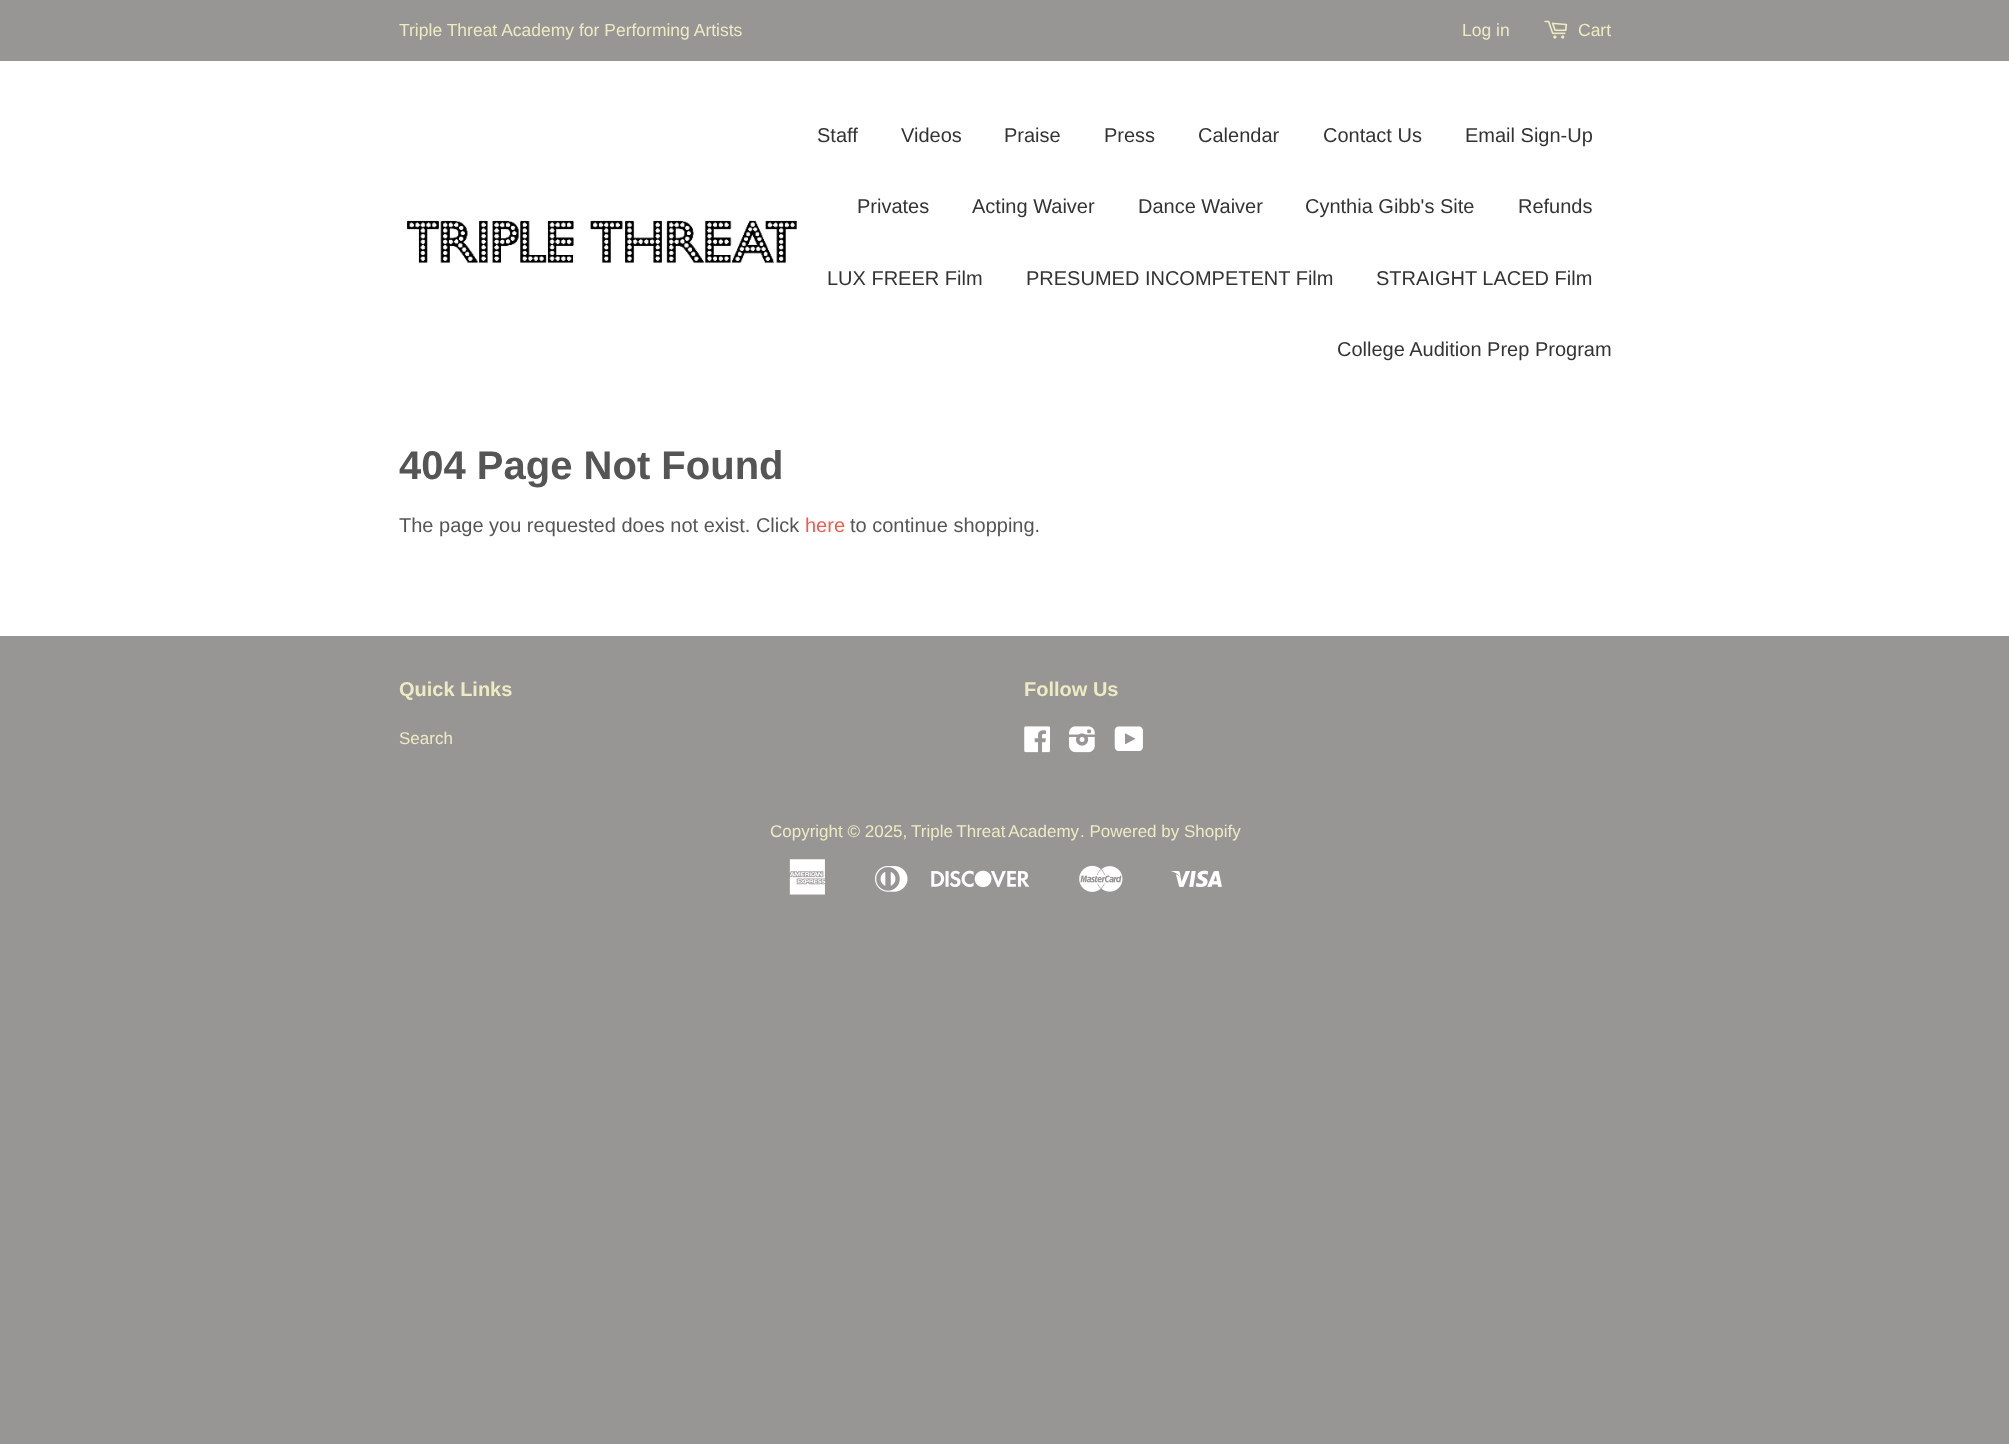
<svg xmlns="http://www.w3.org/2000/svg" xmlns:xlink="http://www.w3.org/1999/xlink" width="2009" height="1444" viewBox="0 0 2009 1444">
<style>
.cls-1{font:17.5px Liberation Sans;fill:#ecebc1}
.cls-2{font:20px Liberation Sans;fill:#333333}
.cls-3{font:bold 40px Liberation Sans;fill:#555555}
.cls-4{font:20px Liberation Sans;fill:#555555}
.cls-5{font:20px Liberation Sans;fill:#f45b4f}
.cls-6{font:bold 20px Liberation Sans;fill:#ecebc1}
.cls-7{font:17px Liberation Sans;fill:#ecebc1}
</style>
<rect width="100%" height="100%" fill="#989595"/>
<rect fill="#ffffff" x="0" y="61" width="2009" height="575"/>
<image xlink:href="image0.png" x="1544" y="20" width="24" height="19"/>
<image xlink:href="image1.png" x="407" y="220" width="390" height="44"/>
<image xlink:href="image2.png" x="1024" y="726" width="26" height="27"/>
<image xlink:href="image3.png" x="1069" y="726" width="26" height="27"/>
<image xlink:href="image4.png" x="1114" y="726" width="29" height="25"/>
<image xlink:href="image5.png" x="789" y="859" width="37" height="36"/>
<image xlink:href="image6.png" x="875" y="866" width="33" height="26"/>
<image xlink:href="image7.png" x="931" y="870" width="99" height="18"/>
<image xlink:href="image8.png" x="1079" y="865" width="44" height="27"/>
<image xlink:href="image9.png" x="1171" y="870" width="51" height="18"/>
<text class="cls-1" x="399" y="36">Triple Threat Academy for Performing Artists</text>
<text class="cls-1" x="1462" y="36">Log in</text>
<text class="cls-1" x="1578" y="36">Cart</text>
<text class="cls-2" x="817" y="142">Staff</text>
<text class="cls-2" x="901" y="142">Videos</text>
<text class="cls-2" x="1004" y="142">Praise</text>
<text class="cls-2" x="1104" y="142">Press</text>
<text class="cls-2" x="1198" y="142">Calendar</text>
<text class="cls-2" x="1323" y="142">Contact Us</text>
<text class="cls-2" x="1465" y="142">Email Sign-Up</text>
<text class="cls-2" x="857" y="213">Privates</text>
<text class="cls-2" x="972" y="213">Acting Waiver</text>
<text class="cls-2" x="1138" y="213">Dance Waiver</text>
<text class="cls-2" x="1305" y="213">Cynthia Gibb's Site</text>
<text class="cls-2" x="1518" y="213">Refunds</text>
<text class="cls-2" x="827" y="285">LUX FREER Film</text>
<text class="cls-2" x="1026" y="285">PRESUMED INCOMPETENT Film</text>
<text class="cls-2" x="1376" y="285">STRAIGHT LACED Film</text>
<text class="cls-2" x="1337" y="356">College Audition Prep Program</text>
<text class="cls-3" x="399" y="479">404 Page Not Found</text>
<text class="cls-4" x="399" y="532">The page you requested does not exist. Click</text>
<text class="cls-5" x="805" y="532">here</text>
<text class="cls-4" x="850" y="532">to continue shopping.</text>
<text class="cls-6" x="399" y="696">Quick Links</text>
<text class="cls-7" x="399" y="744">Search</text>
<text class="cls-6" x="1024" y="696">Follow Us</text>
<text class="cls-7" x="770" y="837">Copyright © 2025,</text>
<text class="cls-7" x="911" y="837" word-spacing="-1">Triple Threat Academy</text>
<text class="cls-7" x="1080" y="837">. Powered by Shopify</text>
</svg>
